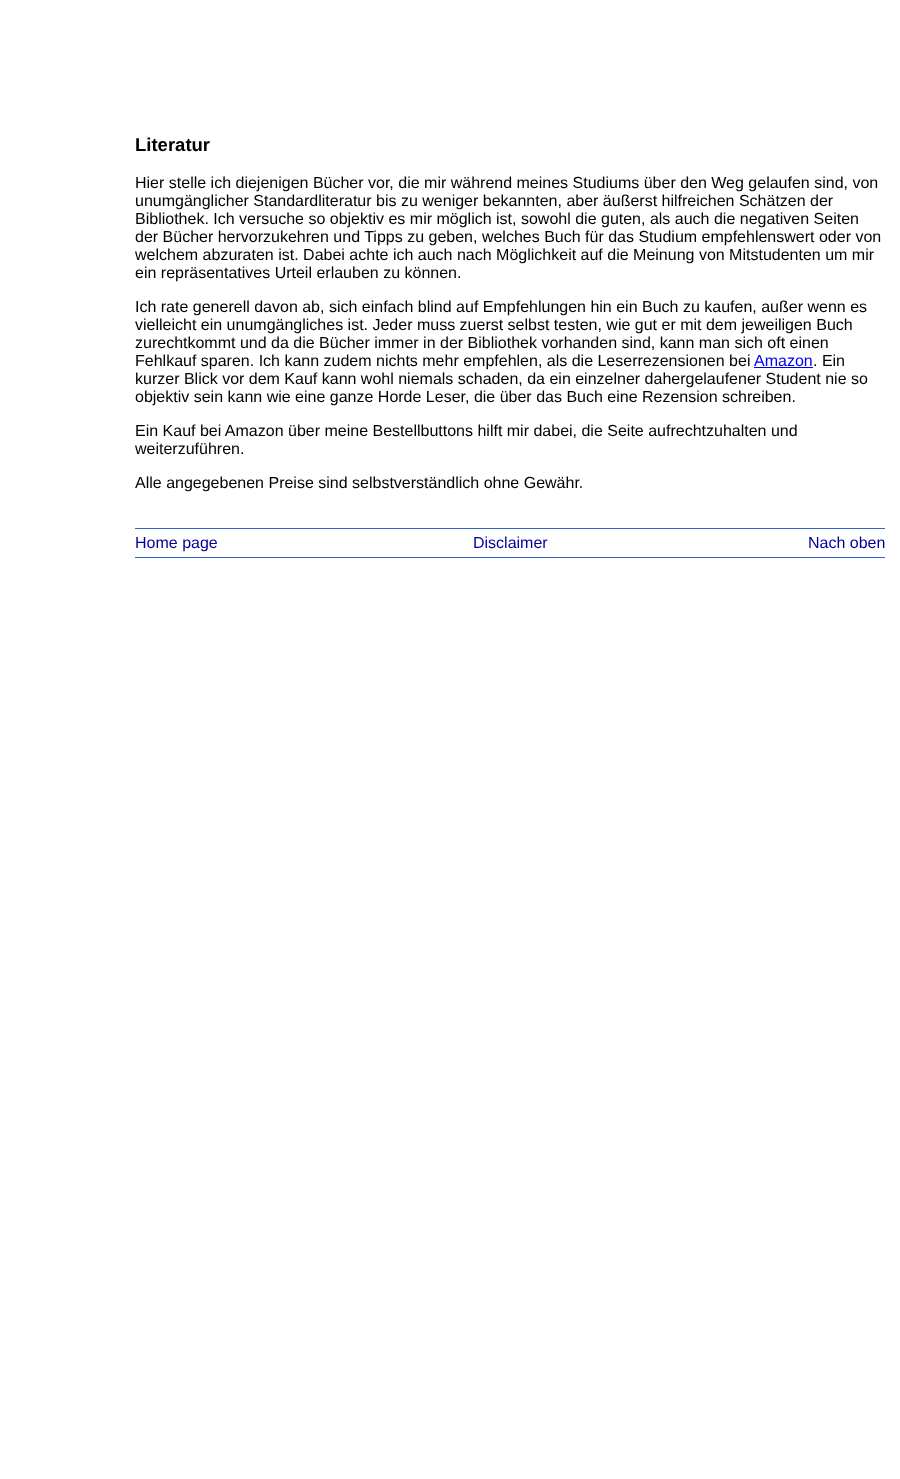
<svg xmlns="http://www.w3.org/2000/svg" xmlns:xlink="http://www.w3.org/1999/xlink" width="900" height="1479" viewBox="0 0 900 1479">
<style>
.cls-1{font:bold 18.5px Liberation Sans;fill:#000000}
.cls-2{font:16px Liberation Sans;fill:#000000}
.cls-3{font:16px Liberation Sans;fill:#0000ee}
.cls-4{font:16px Liberation Sans;fill:#000099}
</style>
<rect width="100%" height="100%" fill="#ffffff"/>
<rect fill="#0000ee" x="754" y="367" width="59" height="1"/>
<rect fill="#3366cc" x="135" y="528" width="750" height="1"/>
<rect fill="#3366cc" x="135" y="557" width="750" height="1"/>
<text class="cls-1" x="135" y="151">Literatur</text>
<text class="cls-2"><tspan x="135" y="188">Hier stelle ich diejenigen Bücher vor, die mir während meines Studiums über den Weg gelaufen sind, von</tspan><tspan x="135" y="206">unumgänglicher Standardliteratur bis zu weniger bekannten, aber äußerst hilfreichen Schätzen der</tspan><tspan x="135" y="224">Bibliothek. Ich versuche so objektiv es mir möglich ist, sowohl die guten, als auch die negativen Seiten</tspan><tspan x="135" y="242">der Bücher hervorzukehren und Tipps zu geben, welches Buch für das Studium empfehlenswert oder von</tspan><tspan x="135" y="260">welchem abzuraten ist. Dabei achte ich auch nach Möglichkeit auf die Meinung von Mitstudenten um mir</tspan><tspan x="135" y="278">ein repräsentatives Urteil erlauben zu können.</tspan></text>
<text class="cls-2"><tspan x="135" y="312">Ich rate generell davon ab, sich einfach blind auf Empfehlungen hin ein Buch zu kaufen, außer wenn es</tspan><tspan x="135" y="330">vielleicht ein unumgängliches ist. Jeder muss zuerst selbst testen, wie gut er mit dem jeweiligen Buch</tspan><tspan x="135" y="348">zurechtkommt und da die Bücher immer in der Bibliothek vorhanden sind, kann man sich oft einen</tspan><tspan x="135" y="366">Fehlkauf sparen. Ich kann zudem nichts mehr empfehlen, als die Leserrezensionen bei</tspan></text>
<text class="cls-3" x="754" y="366">Amazon</text>
<text class="cls-2" x="813" y="366">. Ein</text>
<text class="cls-2"><tspan x="135" y="384">kurzer Blick vor dem Kauf kann wohl niemals schaden, da ein einzelner dahergelaufener Student nie so</tspan><tspan x="135" y="402">objektiv sein kann wie eine ganze Horde Leser, die über das Buch eine Rezension schreiben.</tspan></text>
<text class="cls-2"><tspan x="135" y="436">Ein Kauf bei Amazon über meine Bestellbuttons hilft mir dabei, die Seite aufrechtzuhalten und</tspan><tspan x="135" y="454">weiterzuführen.</tspan></text>
<text class="cls-2" x="135" y="488">Alle angegebenen Preise sind selbstverständlich ohne Gewähr.</text>
<text class="cls-4" x="135" y="548">Home page</text>
<text class="cls-4" x="473" y="548">Disclaimer</text>
<text class="cls-4" x="808" y="548">Nach oben</text>
</svg>
